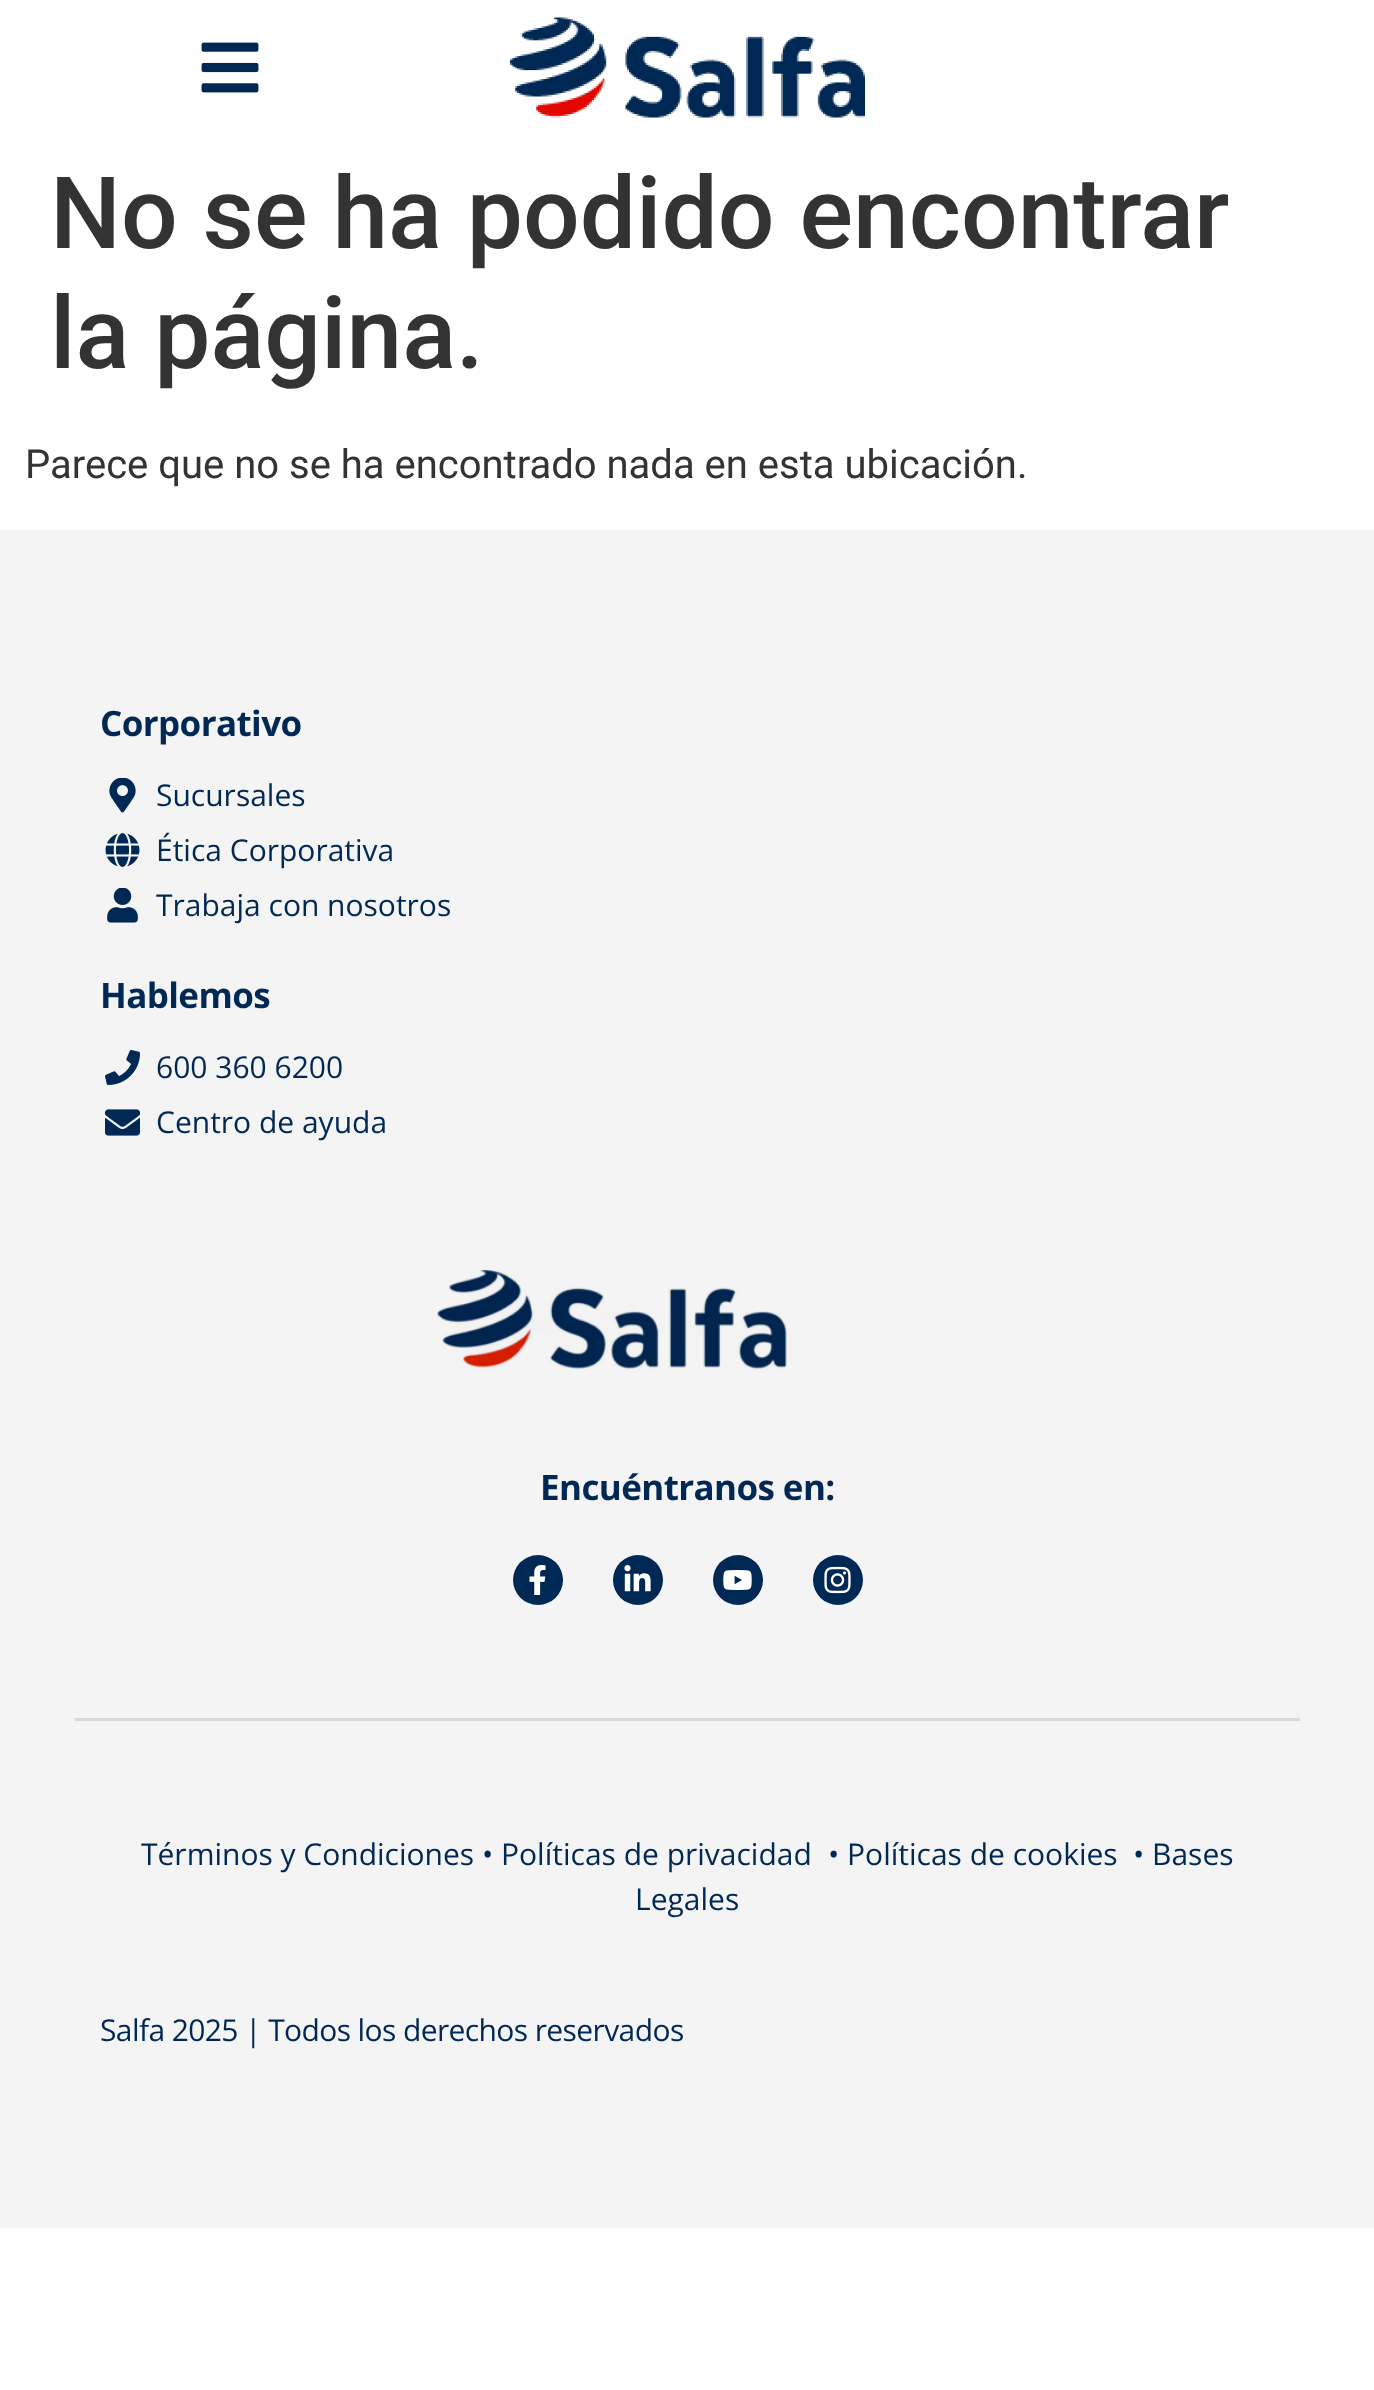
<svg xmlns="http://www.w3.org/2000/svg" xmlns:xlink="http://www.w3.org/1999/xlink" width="1374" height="2390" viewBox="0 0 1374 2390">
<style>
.cls-1{font:500 100px Roboto;fill:#333333}
.cls-2{font:40px Roboto;fill:#333333}
.cls-3{font:bold 35px Open Sans;letter-spacing:-0.6px;fill:#002855}
.cls-4{font:30px Open Sans;fill:#002855}
.cls-5{font:30px Open Sans;letter-spacing:-0.6px;fill:#002855}
</style>
<rect width="100%" height="100%" fill="#ffffff"/>
<image xlink:href="image0.png" x="201" y="42" width="58" height="51"/>
<image xlink:href="image1.png" x="510" y="17" width="355" height="101"/>
<rect fill="#f4f4f4" x="0" y="530" width="1374" height="1698"/>
<image xlink:href="image2.png" x="109" y="778" width="27" height="35"/>
<image xlink:href="image3.png" x="105" y="833" width="35" height="34"/>
<image xlink:href="image4.png" x="107" y="888" width="31" height="35"/>
<image xlink:href="image5.png" x="105" y="1050" width="35" height="35"/>
<image xlink:href="image6.png" x="105" y="1109" width="35" height="27"/>
<image xlink:href="image7.png" x="437" y="1270" width="350" height="100"/>
<circle fill="#002855" cx="538" cy="1580" r="25"/>
<image xlink:href="image8.png" x="529" y="1565" width="17" height="30"/>
<circle fill="#002855" cx="638" cy="1580" r="25"/>
<image xlink:href="image9.png" x="624" y="1565" width="27" height="27"/>
<circle fill="#002855" cx="738" cy="1580" r="25"/>
<image xlink:href="image10.png" x="723" y="1570" width="29" height="20"/>
<circle fill="#002855" cx="838" cy="1580" r="25"/>
<image xlink:href="image11.png" x="824" y="1566" width="27" height="28"/>
<rect fill="#d9d9d9" x="75" y="1718" width="1225" height="3"/>
<text class="cls-1"><tspan x="50" y="248">No se ha podido encontrar</tspan><tspan x="50" y="368">la página.</tspan></text>
<text class="cls-2" x="25" y="478">Parece que no se ha encontrado nada en esta ubicación.</text>
<text class="cls-3" x="100" y="736">Corporativo</text>
<text class="cls-4"><tspan x="156" y="806">Sucursales</tspan><tspan x="156" y="861">Ética Corporativa</tspan><tspan x="156" y="916">Trabaja con nosotros</tspan></text>
<text class="cls-3" x="100" y="1008">Hablemos</text>
<text class="cls-4"><tspan x="156" y="1078">600 360 6200</tspan><tspan x="156" y="1133">Centro de ayuda</tspan></text>
<text class="cls-3" x="540" y="1500">Encuéntranos en:</text>
<text class="cls-4" x="141" y="1865">Términos y Condiciones • Políticas de privacidad</text>
<text class="cls-4" x="828" y="1865">• Políticas de cookies</text>
<text class="cls-4" x="1133" y="1865">• Bases</text>
<text class="cls-4" x="635" y="1910">Legales</text>
<text class="cls-5" x="100" y="2041">Salfa 2025 | Todos los derechos reservados</text>
</svg>
